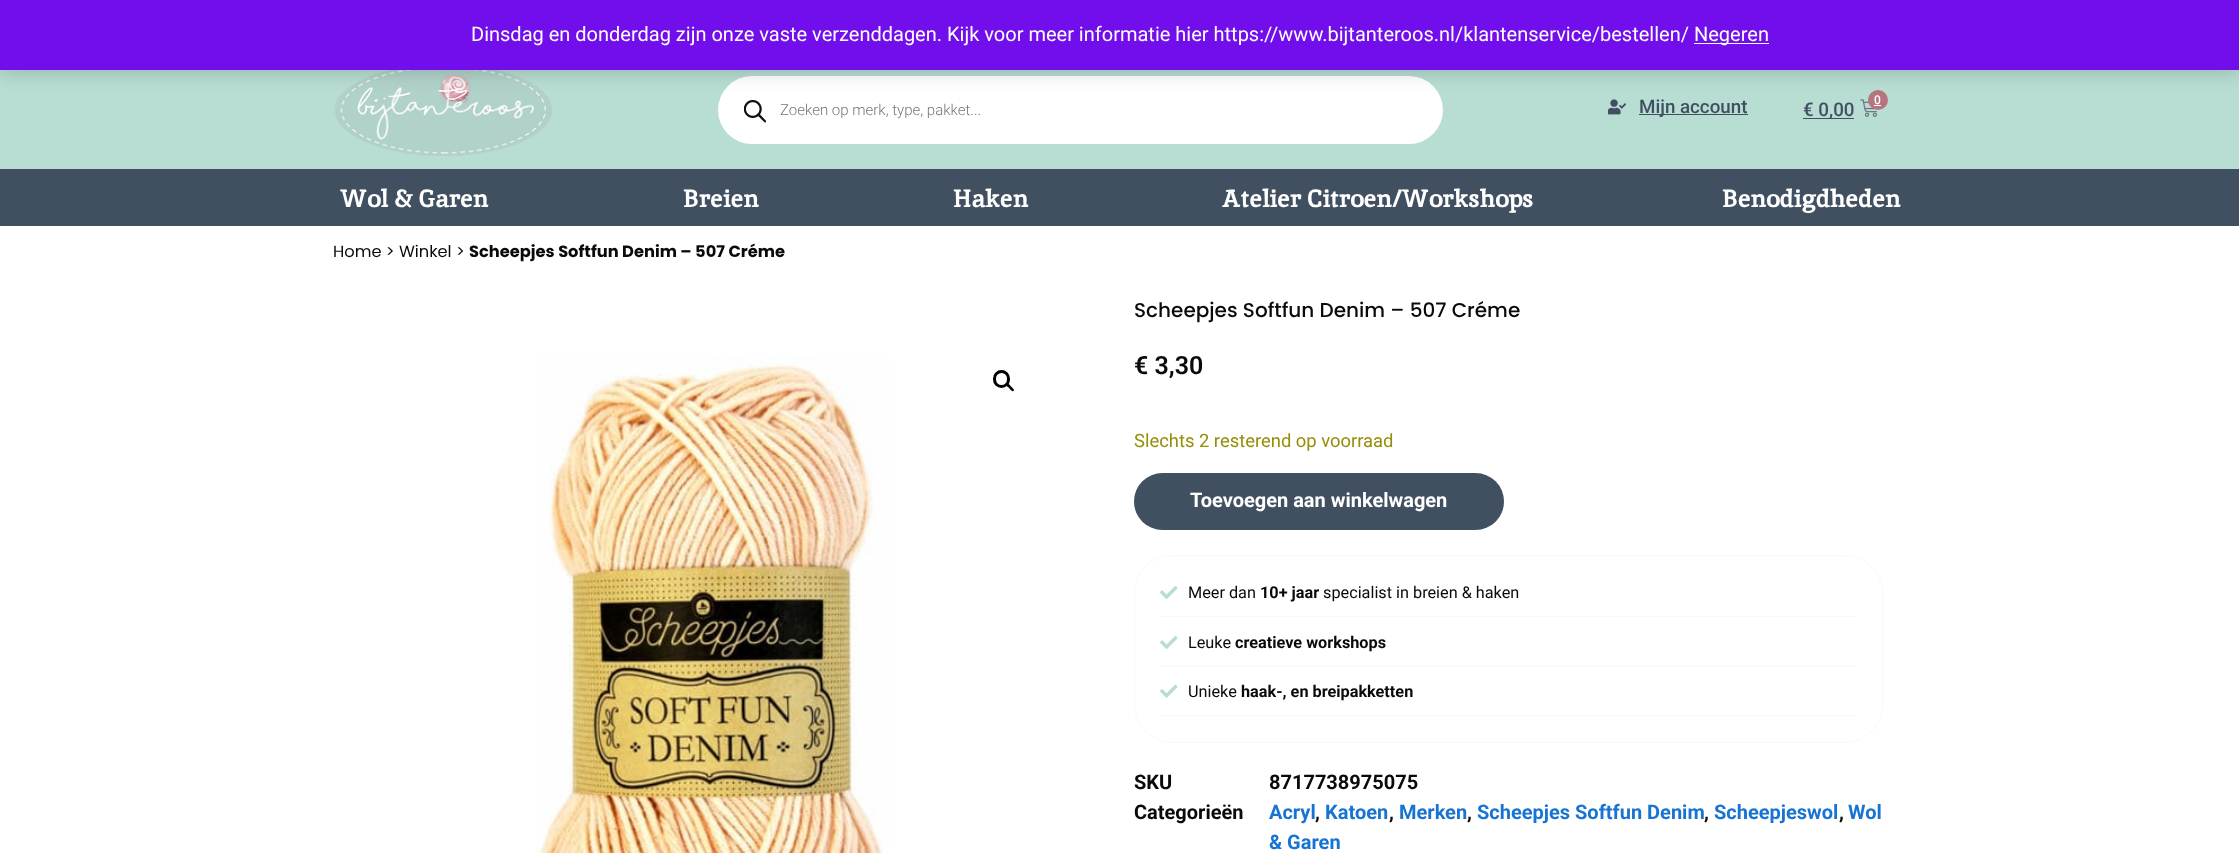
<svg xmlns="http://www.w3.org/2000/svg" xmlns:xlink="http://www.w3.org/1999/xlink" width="2239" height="853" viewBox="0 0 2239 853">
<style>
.cls-1{font:20px Roboto;fill:#ffffff}
.cls-2{font:300 15px Roboto;fill:#777777}
.cls-3{font:500 18.75px Roboto;fill:#415061}
.cls-4{font:500 12px Roboto;fill:#ffffff}
.cls-5{font:bold 25px Inika;fill:#ffffff}
.cls-6{font:16.25px Poppins;fill:#0a0a0a}
.cls-7{font:bold 16.25px Poppins;fill:#0a0a0a}
.cls-8{font:500 20px Poppins;fill:#0a0a0a}
.cls-9{font:600 25px Roboto;fill:#0a0a0a}
.cls-10{font:18.4px Roboto;fill:#958e09}
.cls-11{font:bold 20px Roboto;fill:#ffffff}
.cls-12{font:16.25px Roboto;fill:#0a0a0a}
.cls-13{font:bold 16.25px Roboto;fill:#0a0a0a}
.cls-14{font:bold 20px Roboto;fill:#0a0a0a}
.cls-15{font:bold 20px Roboto;fill:#1874d3}
</style>
<rect width="100%" height="100%" fill="#ffffff"/>
<rect fill="#b8ddd3" x="0" y="70" width="2239" height="99"/>
<image xlink:href="image0.png" x="334" y="70" width="218" height="86"/>
<rect fill="#ffffff" x="718" y="76" width="725" height="68" rx="34"/>
<image xlink:href="image1.png" x="744" y="100" width="22" height="23"/>
<image xlink:href="image2.png" x="1608" y="99" width="18" height="16"/>
<image xlink:href="image3.png" x="1860" y="99" width="17" height="18"/>
<circle fill="#b6747e" cx="1878" cy="100" r="10"/>
<rect fill="#000000" fill-opacity="0.2" filter="blur(10px)" x="0" y="1" width="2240" height="70"/>
<rect fill="#720eec" x="0" y="0" width="2239" height="70"/>
<rect fill="#fcfbfe" x="1694" y="43" width="75" height="1"/>
<rect fill="#415061" x="1639" y="114" width="109" height="1"/>
<rect fill="#ffffff" x="1874" y="105" width="7" height="1"/>
<rect fill="#415061" x="1803" y="118" width="51" height="1"/>
<rect fill="#415061" x="0" y="169" width="2239" height="57"/>
<image xlink:href="image4.png" x="535" y="357" width="355" height="496"/>
<rect fill="none" stroke="#000000" stroke-width="3" x="994.5" y="371.5" width="14" height="15" rx="7"/>
<path fill="#000000" d="M1006.5 383.5C1008 382.5 1010 385.5 1011 386.5C1011.5 387 1015 389.5 1013.5 391C1012 392 1010 389 1009 388C1008.5 387.5 1005 385 1006.5 383.5Z"/>
<rect fill="#415061" x="1134" y="473" width="370" height="57" rx="28.5"/>
<rect fill="none" stroke="#f9f9f9" x="1134.5" y="555.5" width="748" height="187" rx="37.5"/>
<image xlink:href="image5.png" x="1160" y="586" width="18" height="13"/>
<rect fill="#f9f9f9" x="1160" y="616" width="696" height="1"/>
<image xlink:href="image5.png" x="1160" y="636" width="18" height="13"/>
<rect fill="#f9f9f9" x="1160" y="666" width="696" height="1"/>
<image xlink:href="image6.png" x="1160" y="684" width="18" height="14"/>
<rect fill="#f9f9f9" x="1160" y="715" width="696" height="1"/>
<text class="cls-1" x="471" y="41">Dinsdag en donderdag zijn onze vaste verzenddagen. Kijk voor meer informatie hier https://www.bijtanteroos.nl/klantenservice/bestellen/</text>
<text class="cls-1" x="1694" y="41">Negeren</text>
<text class="cls-2" x="780" y="115">Zoeken op merk, type, pakket...</text>
<text class="cls-3" x="1639" y="113">Mijn account</text>
<text class="cls-4" x="1874" y="104">0</text>
<text class="cls-3" x="1803" y="116">€ 0,00</text>
<text class="cls-5" x="340" y="207">Wol &amp; Garen</text>
<text class="cls-5" x="683" y="207">Breien</text>
<text class="cls-5" x="953" y="207">Haken</text>
<text class="cls-5" x="1222" y="207">Atelier Citroen/Workshops</text>
<text class="cls-5" x="1722" y="207">Benodigdheden</text>
<text class="cls-6" x="333" y="257">Home &gt; Winkel &gt;</text>
<text class="cls-7" x="469" y="257">Scheepjes Softfun Denim – 507 Créme</text>
<text class="cls-8" x="1134" y="317">Scheepjes Softfun Denim – 507 Créme</text>
<text class="cls-9" x="1134" y="374">€ 3,30</text>
<text class="cls-10" x="1134" y="447">Slechts 2 resterend op voorraad</text>
<text class="cls-11" x="1190" y="507">Toevoegen aan winkelwagen</text>
<text class="cls-12" x="1188" y="598">Meer dan</text>
<text class="cls-13" x="1260" y="598">10+ jaar</text>
<text class="cls-12" x="1323" y="598">specialist in breien &amp; haken</text>
<text class="cls-12" x="1188" y="648">Leuke</text>
<text class="cls-13" x="1235" y="648">creatieve workshops</text>
<text class="cls-12" x="1188" y="697">Unieke</text>
<text class="cls-13" x="1241" y="697">haak-, en breipakketten</text>
<text class="cls-14" x="1134" y="789">SKU</text>
<text class="cls-14" x="1269" y="789">8717738975075</text>
<text class="cls-14" x="1134" y="819">Categorieën</text>
<text class="cls-15" x="1269" y="819">Acryl</text>
<text class="cls-14" x="1315" y="819">,</text>
<text class="cls-15" x="1325" y="819">Katoen</text>
<text class="cls-14" x="1389" y="819">,</text>
<text class="cls-15" x="1399" y="819">Merken</text>
<text class="cls-14" x="1467" y="819">,</text>
<text class="cls-15" x="1477" y="819">Scheepjes Softfun Denim</text>
<text class="cls-14" x="1704" y="819">,</text>
<text class="cls-15" x="1714" y="819">Scheepjeswol</text>
<text class="cls-14" x="1839" y="819">,</text>
<text class="cls-15" x="1848" y="819">Wol</text>
<text class="cls-15" x="1269" y="849">&amp; Garen</text>
</svg>
